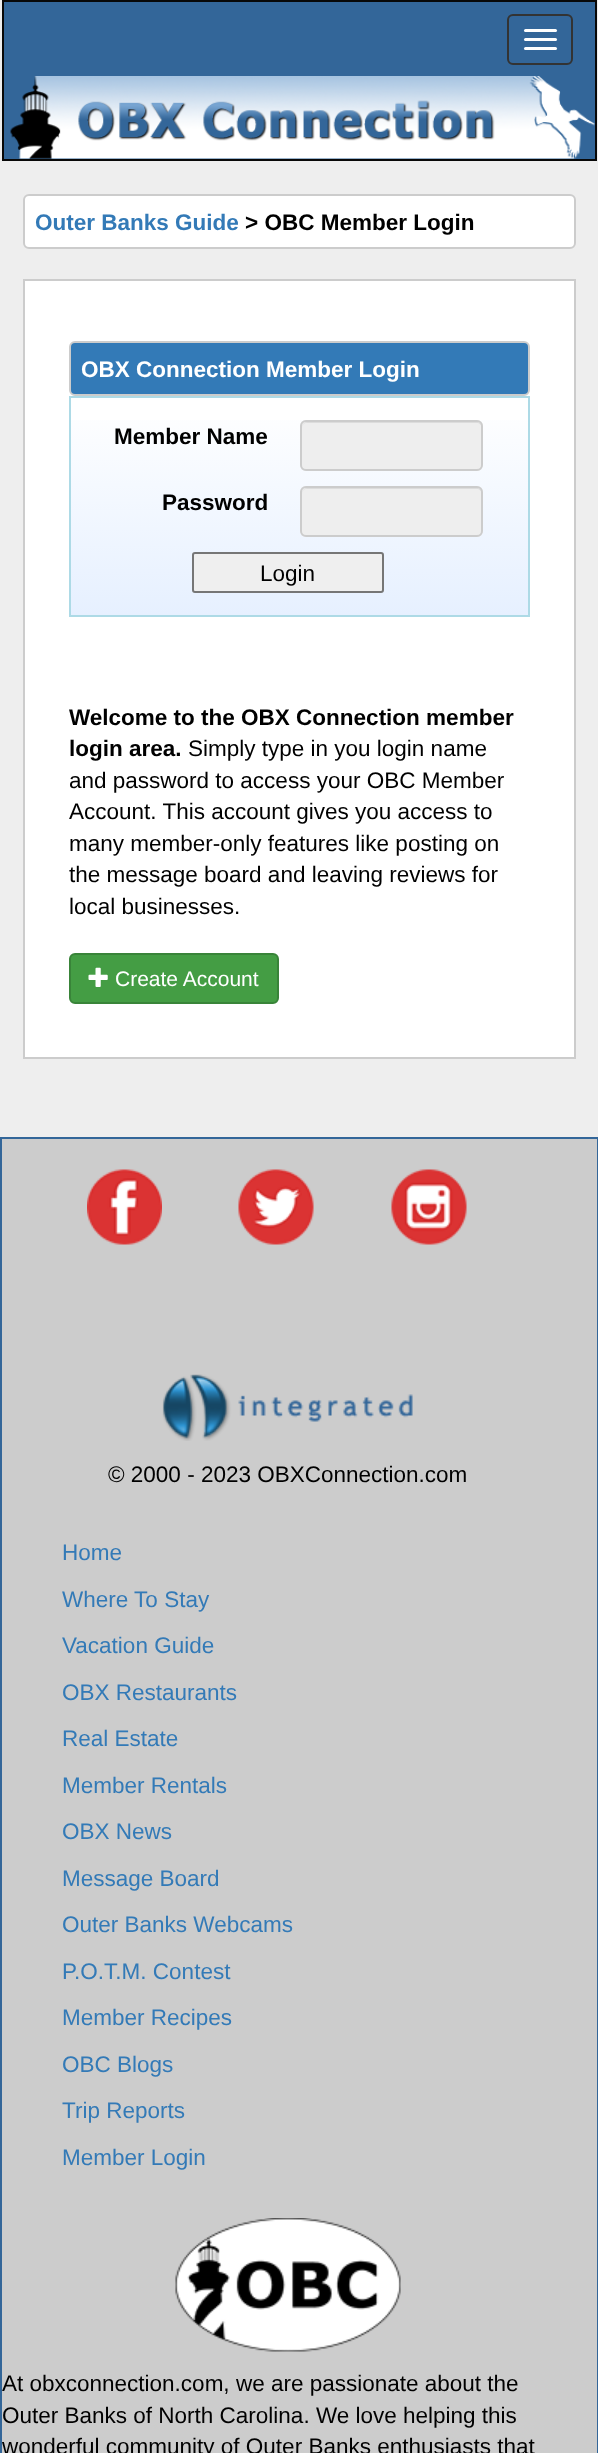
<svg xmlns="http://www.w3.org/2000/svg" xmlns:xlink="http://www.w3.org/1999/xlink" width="598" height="2453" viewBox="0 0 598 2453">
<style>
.cls-1{font:bold 22.5px Liberation Sans;fill:#337ab7}
.cls-2{font:bold 22.5px Liberation Sans;fill:#000000}
.cls-3{font:bold 22.5px Liberation Sans;fill:#ffffff}
.cls-4{font:22.5px Liberation Sans;fill:#000000}
.cls-5{font:21px Liberation Sans;fill:#ffffff}
.cls-6{font:22.5px Liberation Sans;fill:#337ab7}
</style>
<defs>
<linearGradient id="g1" gradientUnits="userSpaceOnUse" x1="299" y1="615" x2="299" y2="398"><stop offset="0" stop-color="#e6f0ff"/><stop offset="1" stop-color="#ffffff"/></linearGradient>
</defs>
<rect width="100%" height="100%" fill="#eeeeee"/>
<rect fill="#336699" stroke="#080808" stroke-width="2" x="3" y="1" width="593" height="159"/>
<rect fill="none" stroke="#333333" stroke-width="2" x="508" y="15" width="64" height="49" rx="5"/>
<rect fill="#ffffff" x="524" y="29" width="33" height="3" rx="1.5"/>
<rect fill="#ffffff" x="524" y="38" width="33" height="3" rx="1.5"/>
<rect fill="#ffffff" x="524" y="47" width="33" height="3" rx="1.5"/>
<image xlink:href="image0.png" x="10" y="76" width="585" height="83"/>
<rect fill="#ffffff" stroke="#cccccc" stroke-width="2" x="24" y="195" width="551" height="53" rx="5"/>
<rect fill="#ffffff" stroke="#cccccc" stroke-width="2" x="24" y="280" width="551" height="778"/>
<rect fill="#337ab7" stroke="#cccccc" stroke-width="2" x="70" y="342" width="459" height="53" rx="5"/>
<rect fill="url(#g1)" x="71" y="420" width="457" height="195"/>
<rect fill="none" stroke="#addae6" stroke-width="2" x="70" y="397" width="459" height="219"/>
<rect fill="#eeeeee" x="300" y="420" width="183" height="51" rx="6"/>
<path fill="#dcdcdc" d="M306 423H477C479 423 482 425 482 428C482 425 481 423 478 422H307C304 422 302 425 302 428C302 425 304 423 306 423Z"/>
<rect fill="none" stroke="#cccccc" stroke-width="2" x="301" y="421" width="181" height="49" rx="5"/>
<rect fill="#eeeeee" x="300" y="486" width="183" height="51" rx="6"/>
<path fill="#dcdcdc" d="M306 489H477C479 489 482 491 482 494C482 491 481 489 478 488H307C304 488 302 491 302 494C302 491 304 489 306 489Z"/>
<rect fill="none" stroke="#cccccc" stroke-width="2" x="301" y="487" width="181" height="49" rx="5"/>
<rect fill="#efefef" stroke="#767676" stroke-width="2" x="193" y="553" width="190" height="39" rx="2"/>
<rect fill="#449d44" stroke="#398439" stroke-width="2" x="70" y="954" width="208" height="49" rx="5"/>
<image xlink:href="image1.png" x="88" y="967" width="20" height="20"/>
<rect fill="#cccccc" stroke="#336699" stroke-width="2" x="1" y="1138" width="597" height="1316"/>
<image xlink:href="image2.png" x="87" y="1169" width="75" height="76"/>
<image xlink:href="image3.png" x="238" y="1169" width="76" height="76"/>
<image xlink:href="image4.png" x="391" y="1169" width="76" height="76"/>
<image xlink:href="image5.png" x="162" y="1374" width="251" height="67"/>
<image xlink:href="image6.png" x="175" y="2218" width="226" height="134"/>
<text class="cls-1" x="35" y="230">Outer Banks Guide</text>
<text class="cls-2" x="245" y="230">&gt; OBC Member Login</text>
<text class="cls-3" x="81" y="377">OBX Connection Member Login</text>
<text class="cls-2" x="114" y="444">Member Name</text>
<text class="cls-2" x="162" y="510">Password</text>
<text class="cls-4" x="260" y="581">Login</text>
<text class="cls-2"><tspan x="69" y="725">Welcome to the OBX Connection member</tspan><tspan x="69" y="756">login area.</tspan></text>
<text class="cls-4" x="188" y="756">Simply type in you login name</text>
<text class="cls-4"><tspan x="69" y="788">and password to access your OBC Member</tspan><tspan x="69" y="819">Account. This account gives you access to</tspan><tspan x="69" y="851">many member-only features like posting on</tspan><tspan x="69" y="882">the message board and leaving reviews for</tspan><tspan x="69" y="914">local businesses.</tspan></text>
<text class="cls-5" x="115" y="986">Create Account</text>
<text class="cls-4" x="108" y="1482">© 2000 - 2023 OBXConnection.com</text>
<text class="cls-6" x="62" y="1560">Home</text>
<text class="cls-6" x="62" y="1607">Where To Stay</text>
<text class="cls-6" x="62" y="1653">Vacation Guide</text>
<text class="cls-6" x="62" y="1700">OBX Restaurants</text>
<text class="cls-6" x="62" y="1746">Real Estate</text>
<text class="cls-6" x="62" y="1793">Member Rentals</text>
<text class="cls-6" x="62" y="1839">OBX News</text>
<text class="cls-6" x="62" y="1886">Message Board</text>
<text class="cls-6" x="62" y="1932">Outer Banks Webcams</text>
<text class="cls-6" x="62" y="1979">P.O.T.M. Contest</text>
<text class="cls-6" x="62" y="2025">Member Recipes</text>
<text class="cls-6" x="62" y="2072">OBC Blogs</text>
<text class="cls-6" x="62" y="2118">Trip Reports</text>
<text class="cls-6" x="62" y="2165">Member Login</text>
<text class="cls-4"><tspan x="2" y="2391">At obxconnection.com, we are passionate about the</tspan><tspan x="2" y="2423">Outer Banks of North Carolina. We love helping this</tspan><tspan x="2" y="2454">wonderful community of Outer Banks enthusiasts that</tspan></text>
</svg>
